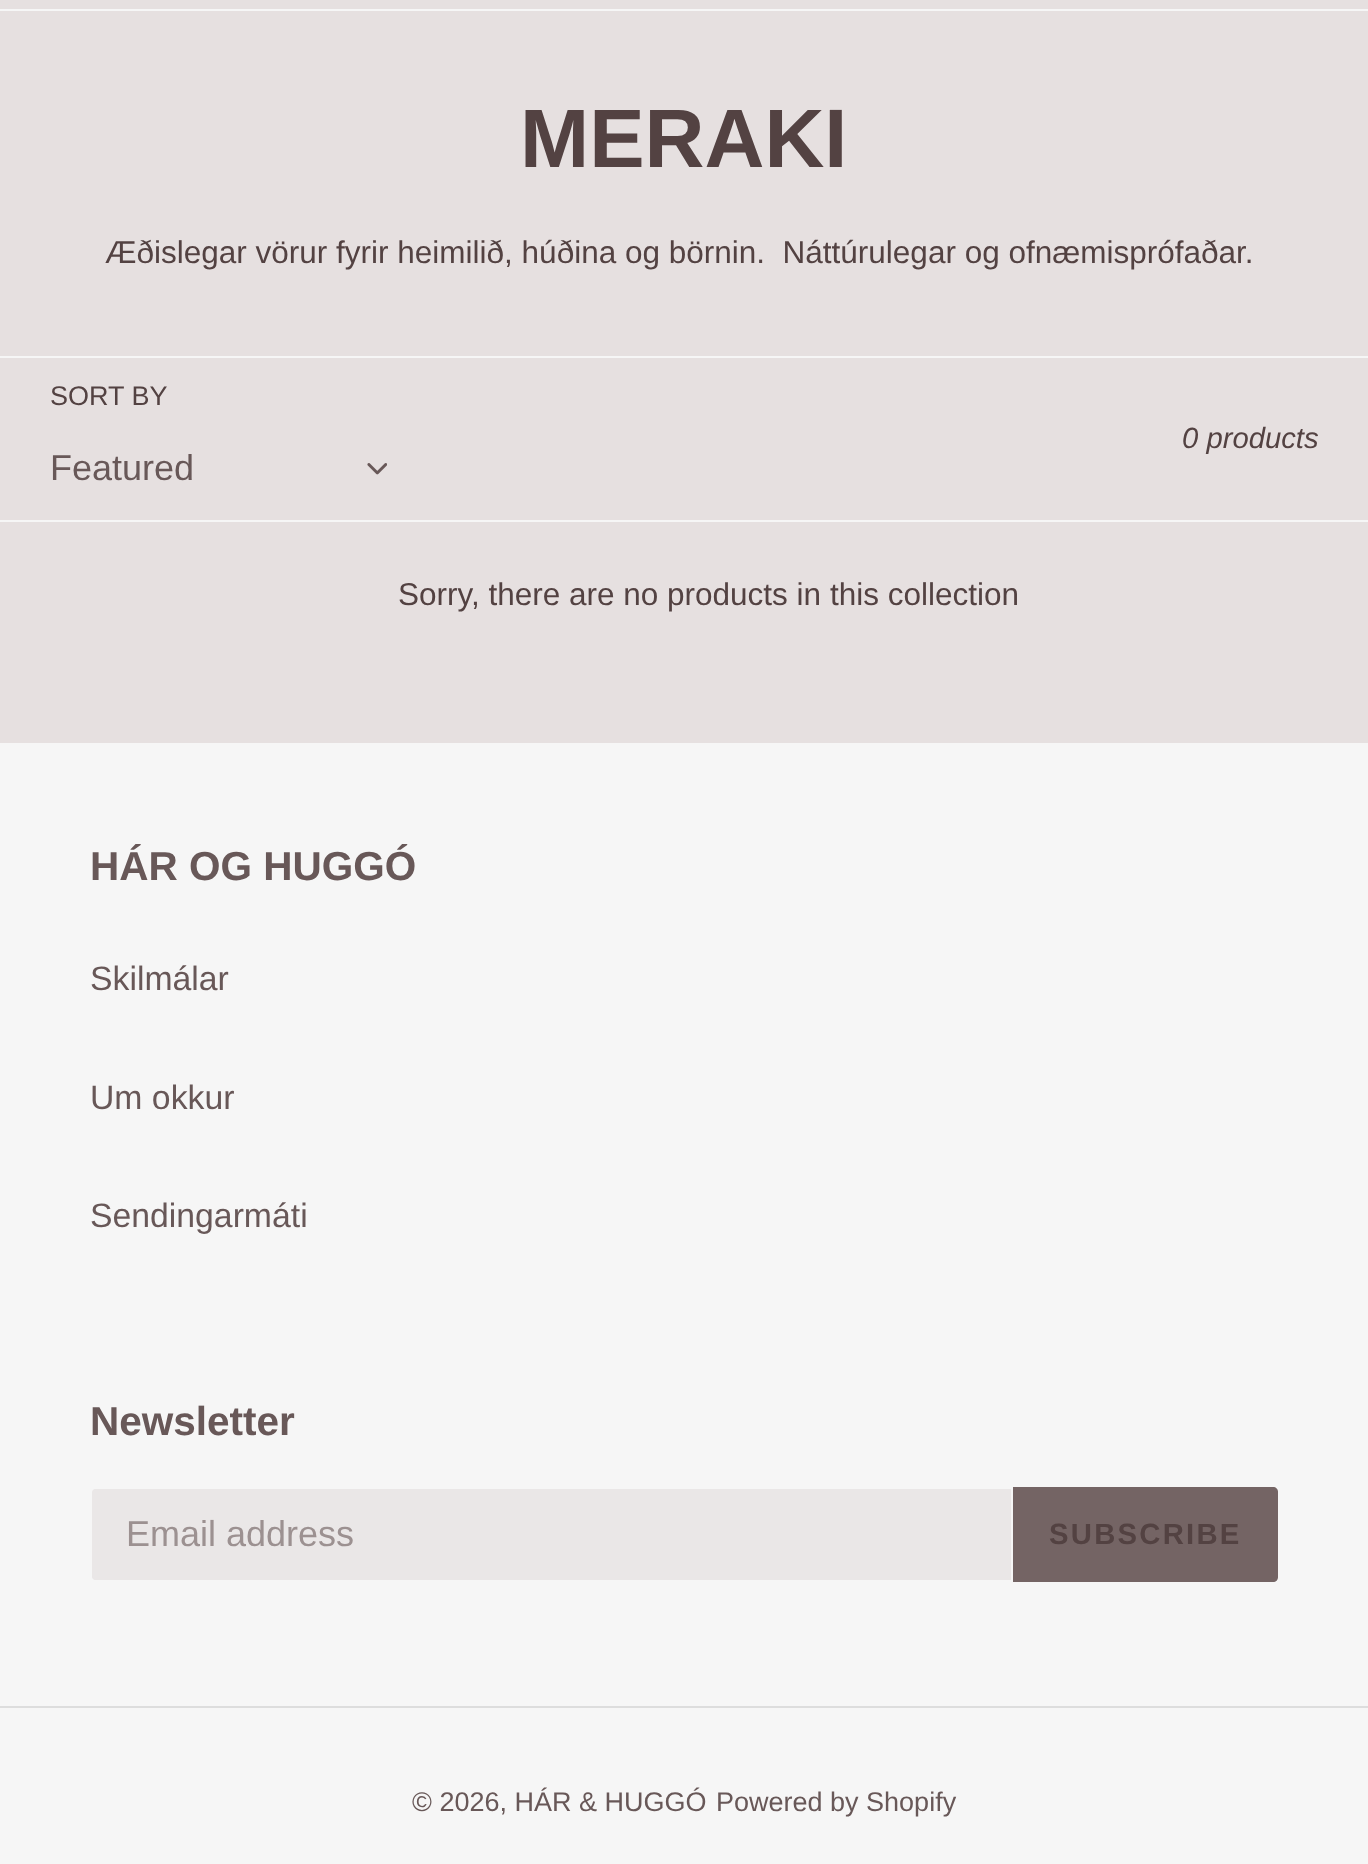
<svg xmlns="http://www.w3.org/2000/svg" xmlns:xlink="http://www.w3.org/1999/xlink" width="1368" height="1864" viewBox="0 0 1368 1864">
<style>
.cls-1{font:bold 83px Liberation Sans;fill:#534242}
.cls-2{font:31.5px Liberation Sans;fill:#534242}
.cls-3{font:27px Liberation Sans;fill:#534242}
.cls-4{font:36px Liberation Sans;fill:#685858}
.cls-5{font:italic 29.25px Liberation Sans;fill:#534242}
.cls-6{font:bold 40.5px Liberation Sans;fill:#685858}
.cls-7{font:33.75px Liberation Sans;fill:#685858}
.cls-8{font:36px Liberation Sans;fill:#9c9191}
.cls-9{font:bold 29.25px Liberation Sans;letter-spacing:2.25px;fill:#534242}
.cls-10{font:27px Liberation Sans;fill:#685858}
</style>
<rect width="100%" height="100%" fill="#e6e0e0"/>
<rect fill="#f6f6f6" x="0" y="9" width="1368" height="2"/>
<rect fill="#f6f6f6" x="0" y="356" width="1368" height="2"/>
<rect fill="#f6f6f6" x="0" y="520" width="1368" height="2"/>
<image xlink:href="image0.png" x="367" y="463" width="20" height="12"/>
<rect fill="#f6f6f6" x="0" y="743" width="1368" height="1121"/>
<path fill="#eae7e7" stroke="#f6f6f6" stroke-width="2" d="M95 1488H1012V1581H95C93 1581 91 1579 91 1577V1492C91 1490 93 1488 95 1488Z"/>
<path fill="#746464" d="M1013 1487H1273C1276 1487 1278 1489 1278 1492V1577C1278 1580 1276 1582 1273 1582H1013Z"/>
<rect fill="#dddddd" x="0" y="1706" width="1368" height="2"/>
<text class="cls-1" x="520" y="167">MERAKI</text>
<text class="cls-2" xml:space="preserve" x="105" y="263">Æðislegar vörur fyrir heimilið, húðina og börnin.  Náttúrulegar og ofnæmisprófaðar.</text>
<text class="cls-3" x="50" y="405">SORT BY</text>
<text class="cls-4" x="50" y="480">Featured</text>
<text class="cls-5" x="1182" y="448">0 products</text>
<text class="cls-2" x="398" y="605">Sorry, there are no products in this collection</text>
<text class="cls-6" x="90" y="880">HÁR OG HUGGÓ</text>
<text class="cls-7" x="90" y="990">Skilmálar</text>
<text class="cls-7" x="90" y="1109">Um okkur</text>
<text class="cls-7" x="90" y="1227">Sendingarmáti</text>
<text class="cls-6" x="90" y="1435">Newsletter</text>
<text class="cls-8" x="126" y="1546">Email address</text>
<text class="cls-9" x="1049" y="1544">SUBSCRIBE</text>
<text class="cls-10" x="412" y="1811">© 2026, HÁR &amp; HUGGÓ</text>
<text class="cls-10" x="716" y="1811">Powered by Shopify</text>
</svg>
